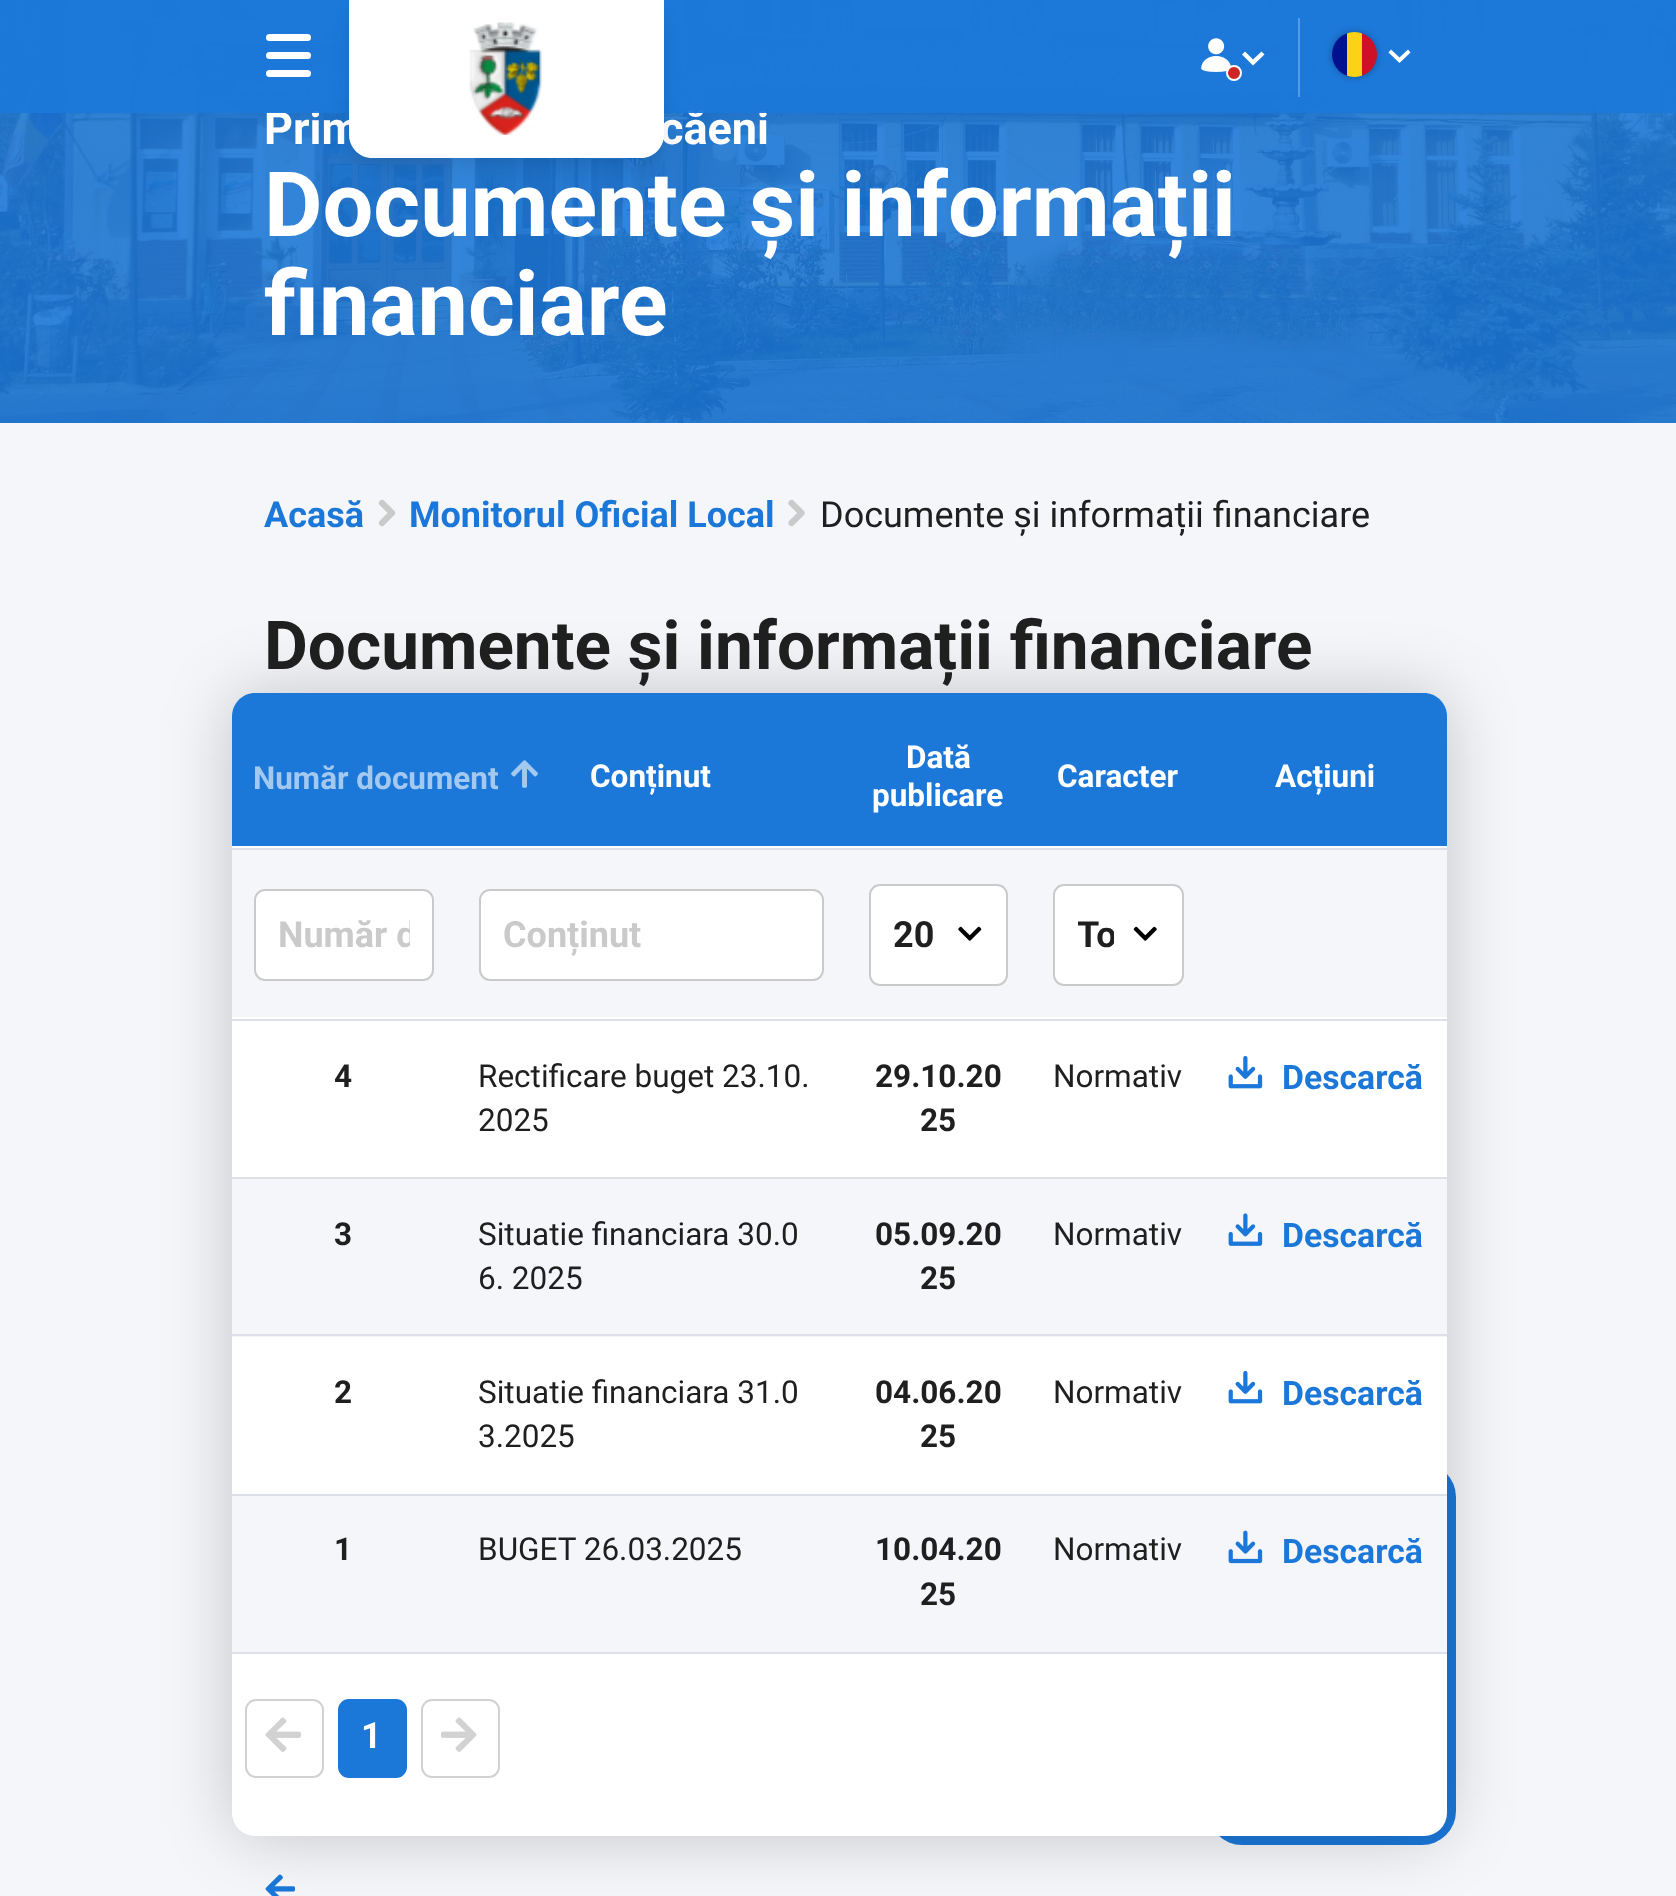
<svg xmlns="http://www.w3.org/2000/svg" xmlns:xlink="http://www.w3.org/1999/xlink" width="1676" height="1896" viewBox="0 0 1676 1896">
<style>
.cls-1{font:bold 45px Roboto;fill:#ffffff}
.cls-2{font:bold 90px Roboto;fill:#ffffff}
.cls-3{font:bold 36px Roboto;fill:#1b78d9}
.cls-4{font:36px Roboto;fill:#1f1f1f}
.cls-5{font:bold 67.5px Roboto;fill:#1f1f1f}
.cls-6{font:bold 31.5px Roboto;fill:#a4c9f0}
.cls-7{font:bold 31.5px Roboto;fill:#ffffff}
.cls-8{font:bold 36px Roboto;fill:#cacaca}
.cls-9{font:bold 36px Roboto;fill:#1f1f1f}
.cls-10{font:bold 31.5px Roboto;fill:#1f1f1f}
.cls-11{font:31.5px Roboto;fill:#1f1f1f}
.cls-12{font:bold 33.75px Roboto;fill:#1b78d9}
.cls-13{font:bold 36px Roboto;fill:#ffffff}
</style>
<defs>
<clipPath id="clip1"><rect x="1332" y="32" width="45" height="45" rx="22.5"/></clipPath>
<clipPath id="clip2"><rect x="279" y="914" width="131" height="42"/></clipPath>
<clipPath id="clip3"><rect x="1078" y="914" width="36" height="42"/></clipPath>
</defs>
<rect width="100%" height="100%" fill="#f5f6fa"/>
<image xlink:href="image2.png" x="0" y="0" width="1676" height="423"/>
<image xlink:href="image3.png" x="378" y="499" width="18" height="28"/>
<image xlink:href="image4.png" x="788" y="499" width="17" height="28"/>
<rect fill="#1b78d9" x="1208" y="1463" width="248" height="382" rx="34"/>
<image xlink:href="image13.png" x="265" y="1874" width="31" height="22"/>
<rect fill="#000000" fill-opacity="0.2" filter="blur(34px)" x="232" y="693" width="1215" height="1143" rx="23"/>
<rect fill="#ffffff" x="232" y="693" width="1215" height="1143" rx="23"/>
<path fill="#1b78d9" d="M255 693H457V846H232V716C232 703.5 242.5 693 255 693Z"/>
<rect fill="#1b78d9" x="457" y="693" width="749" height="153"/>
<image xlink:href="image5.png" x="511" y="760" width="27" height="28"/>
<path fill="#1b78d9" d="M1206 693H1424C1436.5 693 1447 703.5 1447 716V846H1206Z"/>
<rect fill="#dde0e9" x="232" y="848" width="1215" height="2"/>
<rect fill="#f5f6fa" x="232" y="850" width="1215" height="167"/>
<rect fill="#ffffff" stroke="#cacaca" stroke-width="2" x="255" y="890" width="178" height="90" rx="10"/>
<rect fill="#ffffff" stroke="#cacaca" stroke-width="2" x="480" y="890" width="343" height="90" rx="10"/>
<rect fill="#ffffff" x="869" y="884" width="139" height="102" rx="11"/>
<image xlink:href="image6.png" x="958" y="926" width="24" height="15"/>
<rect fill="none" stroke="#cacaca" stroke-width="2" x="870" y="885" width="137" height="100" rx="10"/>
<rect fill="#ffffff" x="1053" y="884" width="131" height="102" rx="11"/>
<image xlink:href="image7.png" x="1133" y="926" width="24" height="15"/>
<rect fill="none" stroke="#cacaca" stroke-width="2" x="1054" y="885" width="129" height="100" rx="10"/>
<rect fill="#dde0e9" x="232" y="1019" width="1215" height="2"/>
<rect fill="#dde0e9" x="232" y="1177" width="1215" height="2"/>
<image xlink:href="image8.png" x="1228" y="1055" width="35" height="34"/>
<rect fill="#f5f6fa" x="232" y="1179" width="1215" height="158"/>
<rect fill="#dde0e9" x="232" y="1334" width="1215" height="2"/>
<image xlink:href="image9.png" x="1228" y="1213" width="35" height="33"/>
<rect fill="#dde0e9" x="232" y="1494" width="1215" height="2"/>
<image xlink:href="image8.png" x="1228" y="1370" width="35" height="34"/>
<rect fill="#f5f6fa" x="232" y="1496" width="1215" height="156"/>
<rect fill="#dde0e9" x="232" y="1652" width="1215" height="2"/>
<image xlink:href="image10.png" x="1228" y="1530" width="35" height="34"/>
<rect fill="none" stroke="#d2d2d2" stroke-width="2" x="246" y="1700" width="77" height="77" rx="10"/>
<image xlink:href="image11.png" x="265" y="1717" width="36" height="35"/>
<rect fill="#1b78d9" stroke="#1b78d9" stroke-width="2" x="339" y="1700" width="67" height="77" rx="10"/>
<rect fill="none" stroke="#d2d2d2" stroke-width="2" x="422" y="1700" width="77" height="77" rx="10"/>
<image xlink:href="image12.png" x="441" y="1717" width="36" height="35"/>
<text class="cls-1" x="264" y="144">Prim</text>
<text class="cls-1" x="660" y="144">căeni</text>
<rect fill="#1b78d9" fill-opacity="0.95" x="0" y="0" width="1676" height="113"/>
<rect fill="#ffffff" x="266" y="70" width="45" height="7" rx="3.5"/>
<rect fill="#ffffff" x="266" y="52" width="45" height="7" rx="3.5"/>
<rect fill="#ffffff" x="266" y="34" width="45" height="7" rx="3.5"/>
<path fill="#ffffff" d="M1399.5 63L1410.5 52.5L1408 49.5L1399.5 57.5L1391 49.5L1388.5 52.5Z"/>
<rect fill="#000000" fill-opacity="0.3" filter="blur(3.5px)" x="1332" y="32" width="45" height="45" rx="22.5"/>
<g clip-path="url(#clip1)">
<rect fill="#ce1126" x="1362" y="33" width="15" height="43"/>
<rect fill="#fcd116" x="1347" y="32" width="15" height="45"/>
<rect fill="#00118f" x="1332" y="33" width="15" height="43"/>
</g>
<rect fill="#559ae2" x="1298" y="18" width="2" height="79"/>
<image xlink:href="image1.png" x="1201" y="38" width="30" height="34"/>
<circle fill="#cf2424" stroke="#ffffff" stroke-width="2" cx="1234" cy="73" r="7"/>
<path fill="#ffffff" d="M1253 65.5L1264.5 54.5L1261.5 51.5L1253 59.5L1245 51.5L1242 54.5Z"/>
<rect fill="#000000" fill-opacity="0.1" filter="blur(9px)" x="349" y="7" width="315" height="157" rx="23"/>
<path fill="#ffffff" d="M349 0H664V135C664 147.5 653.5 158 641 158H372C359.5 158 349 147.5 349 135Z"/>
<image xlink:href="image0.png" x="469" y="22" width="73" height="113"/>
<text class="cls-2"><tspan x="264" y="236">Documente și informații</tspan><tspan x="264" y="335">financiare</tspan></text>
<text class="cls-3" x="264" y="527">Acasă</text>
<text class="cls-3" x="409" y="527">Monitorul Oficial Local</text>
<text class="cls-4" x="820" y="527">Documente și informații financiare</text>
<text class="cls-5" x="264" y="669">Documente și informații financiare</text>
<text class="cls-6" x="253" y="789">Număr document</text>
<text class="cls-7" x="590" y="787">Conținut</text>
<text class="cls-7" x="906" y="768">Dată</text>
<text class="cls-7" x="872" y="806">publicare</text>
<text class="cls-7" x="1057" y="787">Caracter</text>
<text class="cls-7" x="1275" y="787">Acțiuni</text>
<g clip-path="url(#clip2)">
<text class="cls-8" x="278" y="947">Număr d</text>
</g>
<text class="cls-8" x="503" y="947">Conținut</text>
<text class="cls-9" x="893" y="947">20</text>
<g clip-path="url(#clip3)">
<text class="cls-9" x="1077" y="947">To</text>
</g>
<text class="cls-10" x="334" y="1087">4</text>
<text class="cls-11"><tspan x="478" y="1087">Rectificare buget 23.10.</tspan><tspan x="478" y="1131">2025</tspan></text>
<text class="cls-10" x="875" y="1087">29.10.20</text>
<text class="cls-10" x="920" y="1131">25</text>
<text class="cls-11" x="1053" y="1087">Normativ</text>
<text class="cls-12" x="1282" y="1089">Descarcă</text>
<text class="cls-10" x="334" y="1245">3</text>
<text class="cls-11"><tspan x="478" y="1245">Situatie financiara 30.0</tspan><tspan x="478" y="1289">6. 2025</tspan></text>
<text class="cls-10" x="875" y="1245">05.09.20</text>
<text class="cls-10" x="920" y="1289">25</text>
<text class="cls-11" x="1053" y="1245">Normativ</text>
<text class="cls-12" x="1282" y="1247">Descarcă</text>
<text class="cls-10" x="334" y="1403">2</text>
<text class="cls-11"><tspan x="478" y="1403">Situatie financiara 31.0</tspan><tspan x="478" y="1447">3.2025</tspan></text>
<text class="cls-10" x="875" y="1403">04.06.20</text>
<text class="cls-10" x="920" y="1447">25</text>
<text class="cls-11" x="1053" y="1403">Normativ</text>
<text class="cls-12" x="1282" y="1405">Descarcă</text>
<text class="cls-10" x="334" y="1560">1</text>
<text class="cls-11" x="478" y="1560">BUGET 26.03.2025</text>
<text class="cls-10" x="875" y="1560">10.04.20</text>
<text class="cls-10" x="920" y="1605">25</text>
<text class="cls-11" x="1053" y="1560">Normativ</text>
<text class="cls-12" x="1282" y="1563">Descarcă</text>
<text class="cls-13" x="361" y="1748">1</text>
</svg>
